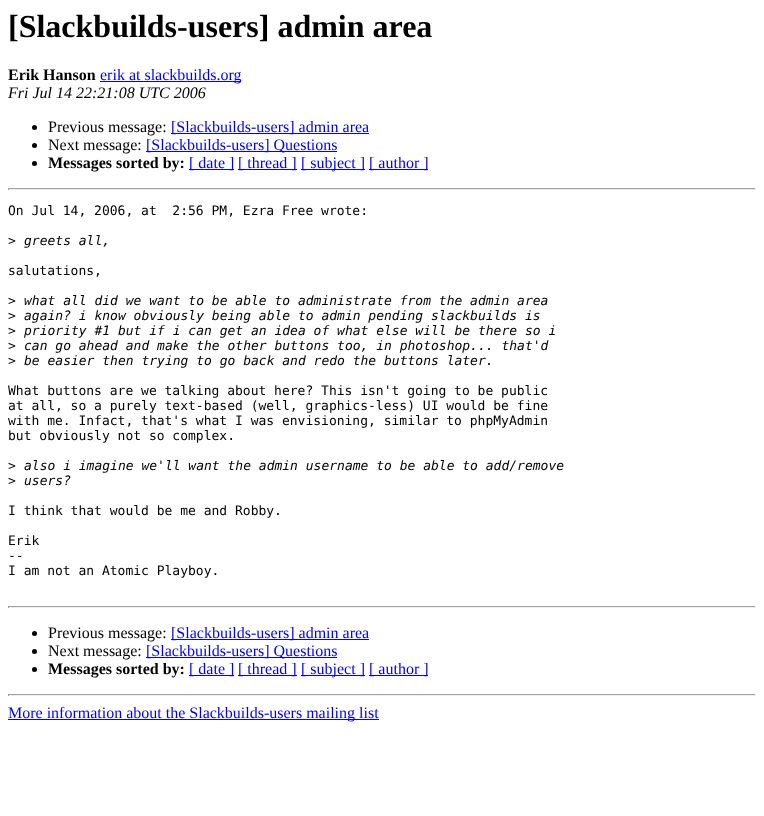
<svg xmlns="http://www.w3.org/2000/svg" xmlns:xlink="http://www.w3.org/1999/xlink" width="764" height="816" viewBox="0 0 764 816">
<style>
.cls-1{font:bold 32px Liberation Serif;fill:#000000}
.cls-2{font:bold 16px Liberation Serif;fill:#000000}
.cls-3{font:16px Liberation Serif;fill:#0000ee}
.cls-4{font:italic 16px Liberation Serif;fill:#000000}
.cls-5{font:16px Liberation Serif;fill:#000000}
.cls-6{font:13px DejaVu Sans Mono;fill:#000000}
.cls-7{font:italic 13px DejaVu Sans Mono;fill:#000000}
</style>
<rect width="100%" height="100%" fill="#ffffff"/>
<rect fill="#0000ee" x="100" y="81" width="141" height="1"/>
<circle fill="#000000" cx="34.5" cy="127.5" r="2.5"/>
<rect fill="#0000ee" x="171" y="133" width="198" height="1"/>
<circle fill="#000000" cx="34.5" cy="145.5" r="2.5"/>
<rect fill="#0000ee" x="146" y="151" width="191" height="1"/>
<circle fill="#000000" cx="34.5" cy="163.5" r="2.5"/>
<rect fill="#0000ee" x="189" y="169" width="45" height="1"/>
<rect fill="#0000ee" x="238" y="169" width="59" height="1"/>
<rect fill="#0000ee" x="301" y="169" width="64" height="1"/>
<rect fill="#0000ee" x="369" y="169" width="59" height="1"/>
<rect fill="#9f9f9f" x="8" y="188" width="748" height="1"/>
<rect fill="#eeeeee" x="755" y="188" width="1" height="2"/>
<rect fill="#eeeeee" x="8" y="189" width="748" height="1"/>
<rect fill="#9f9f9f" x="8" y="188" width="1" height="2"/>
<rect fill="#9f9f9f" x="8" y="606" width="748" height="1"/>
<rect fill="#eeeeee" x="755" y="606" width="1" height="2"/>
<rect fill="#eeeeee" x="8" y="607" width="748" height="1"/>
<rect fill="#9f9f9f" x="8" y="606" width="1" height="2"/>
<circle fill="#000000" cx="34.5" cy="633.5" r="2.5"/>
<rect fill="#0000ee" x="171" y="639" width="198" height="1"/>
<circle fill="#000000" cx="34.5" cy="651.5" r="2.5"/>
<rect fill="#0000ee" x="146" y="657" width="191" height="1"/>
<circle fill="#000000" cx="34.5" cy="669.5" r="2.5"/>
<rect fill="#0000ee" x="189" y="675" width="45" height="1"/>
<rect fill="#0000ee" x="238" y="675" width="59" height="1"/>
<rect fill="#0000ee" x="301" y="675" width="64" height="1"/>
<rect fill="#0000ee" x="369" y="675" width="59" height="1"/>
<rect fill="#9f9f9f" x="8" y="694" width="748" height="1"/>
<rect fill="#eeeeee" x="755" y="694" width="1" height="2"/>
<rect fill="#eeeeee" x="8" y="695" width="748" height="1"/>
<rect fill="#9f9f9f" x="8" y="694" width="1" height="2"/>
<rect fill="#0000ee" x="8" y="719" width="371" height="1"/>
<text class="cls-1" x="8" y="37">[Slackbuilds-users] admin area</text>
<text class="cls-2" x="8" y="80">Erik Hanson</text>
<text class="cls-3" x="100" y="80">erik at slackbuilds.org</text>
<text class="cls-4" x="8" y="98">Fri Jul 14 22:21:08 UTC 2006</text>
<text class="cls-5" x="48" y="132">Previous message:</text>
<text class="cls-3" x="171" y="132">[Slackbuilds-users] admin area</text>
<text class="cls-5" x="48" y="150">Next message:</text>
<text class="cls-3" x="146" y="150">[Slackbuilds-users] Questions</text>
<text class="cls-2" x="48" y="168">Messages sorted by:</text>
<text class="cls-3" x="189" y="168">[ date ]</text>
<text class="cls-3" x="238" y="168">[ thread ]</text>
<text class="cls-3" x="301" y="168">[ subject ]</text>
<text class="cls-3" x="369" y="168">[ author ]</text>
<text class="cls-6" xml:space="preserve" x="8" y="215">On Jul 14, 2006, at  2:56 PM, Ezra Free wrote:</text>
<text class="cls-6" x="8" y="245">&gt;</text>
<text class="cls-7" x="24" y="245">greets all,</text>
<text class="cls-6" x="8" y="275">salutations,</text>
<text class="cls-6" x="8" y="305">&gt;</text>
<text class="cls-7" x="24" y="305">what all did we want to be able to administrate from the admin area</text>
<text class="cls-6" x="8" y="320">&gt;</text>
<text class="cls-7" x="24" y="320">again? i know obviously being able to admin pending slackbuilds is</text>
<text class="cls-6" x="8" y="335">&gt;</text>
<text class="cls-7" x="24" y="335">priority #1 but if i can get an idea of what else will be there so i</text>
<text class="cls-6" x="8" y="350">&gt;</text>
<text class="cls-7" x="24" y="350">can go ahead and make the other buttons too, in photoshop... that'd</text>
<text class="cls-6" x="8" y="365">&gt;</text>
<text class="cls-7" x="24" y="365">be easier then trying to go back and redo the buttons later.</text>
<text class="cls-6"><tspan x="8" y="395">What buttons are we talking about here? This isn't going to be public</tspan><tspan x="8" y="410">at all, so a purely text-based (well, graphics-less) UI would be fine</tspan><tspan x="8" y="425">with me. Infact, that's what I was envisioning, similar to phpMyAdmin</tspan><tspan x="8" y="440">but obviously not so complex.</tspan></text>
<text class="cls-6" x="8" y="470">&gt;</text>
<text class="cls-7" x="24" y="470">also i imagine we'll want the admin username to be able to add/remove</text>
<text class="cls-6" x="8" y="485">&gt;</text>
<text class="cls-7" x="24" y="485">users?</text>
<text class="cls-6" x="8" y="515">I think that would be me and Robby.</text>
<text class="cls-6"><tspan x="8" y="545">Erik</tspan><tspan x="8" y="560">--</tspan><tspan x="8" y="575">I am not an Atomic Playboy.</tspan></text>
<text class="cls-5" x="48" y="638">Previous message:</text>
<text class="cls-3" x="171" y="638">[Slackbuilds-users] admin area</text>
<text class="cls-5" x="48" y="656">Next message:</text>
<text class="cls-3" x="146" y="656">[Slackbuilds-users] Questions</text>
<text class="cls-2" x="48" y="674">Messages sorted by:</text>
<text class="cls-3" x="189" y="674">[ date ]</text>
<text class="cls-3" x="238" y="674">[ thread ]</text>
<text class="cls-3" x="301" y="674">[ subject ]</text>
<text class="cls-3" x="369" y="674">[ author ]</text>
<text class="cls-3" x="8" y="718">More information about the Slackbuilds-users mailing list</text>
</svg>
